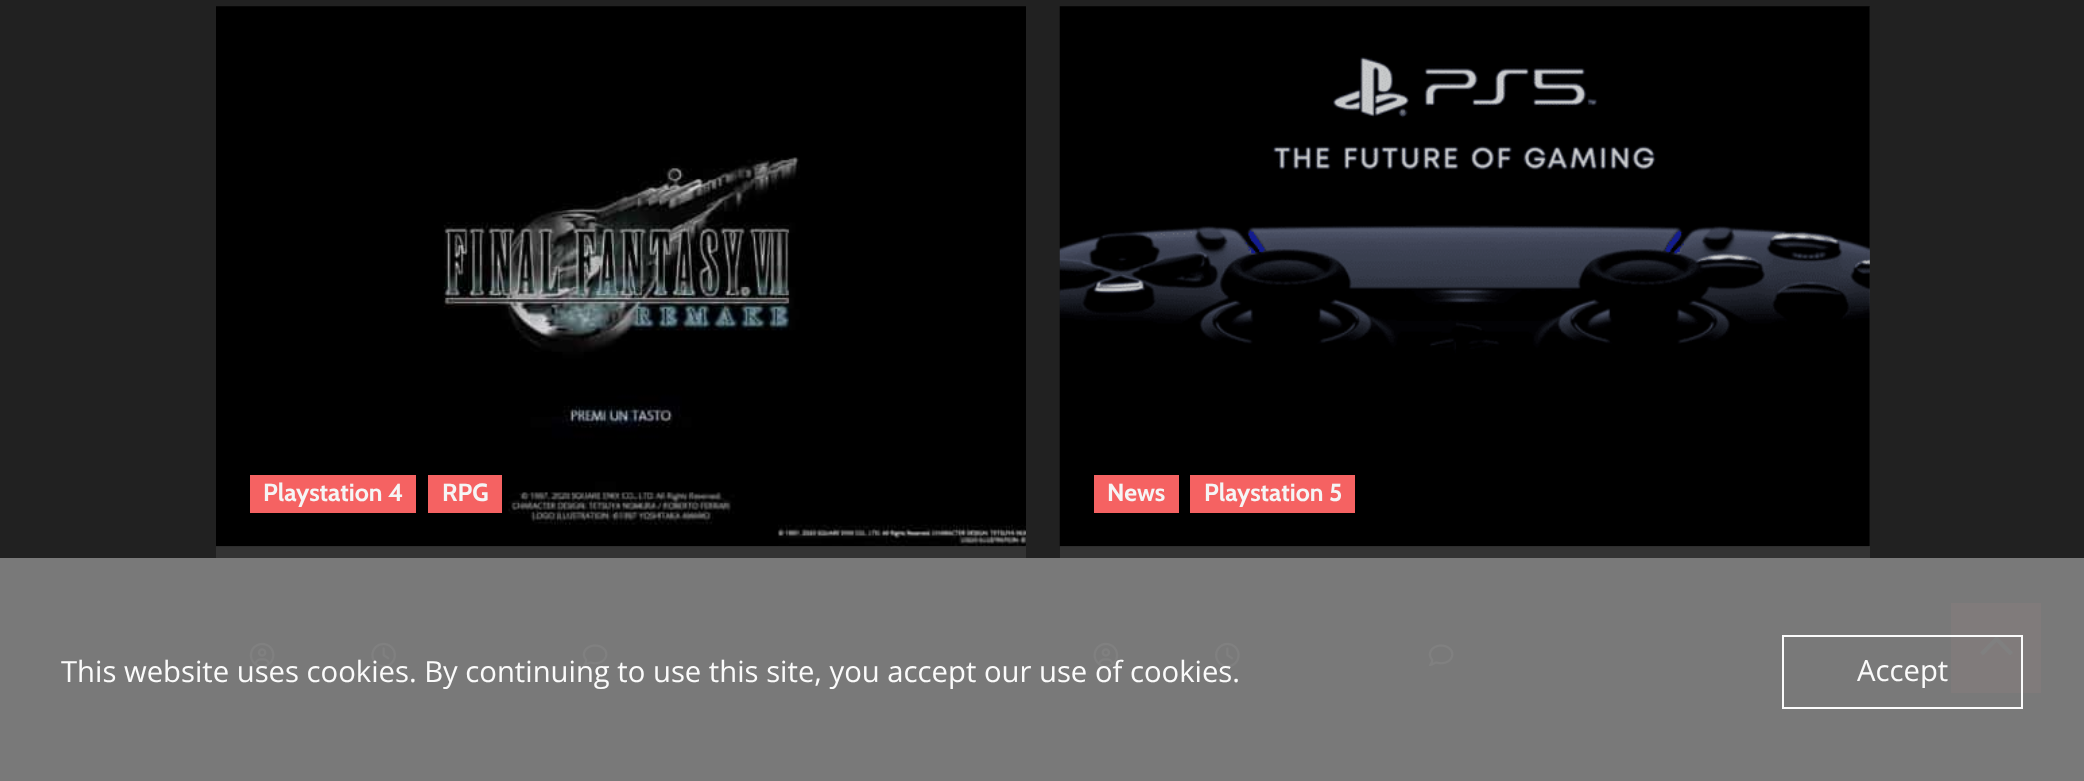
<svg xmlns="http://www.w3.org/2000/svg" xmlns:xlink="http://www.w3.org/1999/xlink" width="2084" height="781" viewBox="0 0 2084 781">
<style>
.cls-1{font:bold 24.75px Cabin;fill:#f5f5f5}
.cls-2{font:29.25px Open Sans;fill:#fbfbfb}
</style>
<rect width="100%" height="100%" fill="#212121"/>
<rect fill="#797979" x="0" y="558" width="2084" height="223"/>
<rect fill="#333333" x="216" y="547" width="810" height="11"/>
<rect fill="#3d3d3d" x="216" y="546" width="810" height="1"/>
<image xlink:href="image0.png" x="216" y="6" width="810" height="541"/>
<rect fill="#f56262" x="250" y="475" width="166" height="38"/>
<rect fill="#f56262" x="428" y="475" width="74" height="38"/>
<image xlink:href="image1.png" x="249" y="642" width="26" height="26"/>
<image xlink:href="image2.png" x="371" y="642" width="25" height="26"/>
<image xlink:href="image3.png" x="582" y="644" width="26" height="22"/>
<rect fill="#333333" x="1060" y="547" width="810" height="11"/>
<rect fill="#3d3d3d" x="1060" y="7" width="810" height="540"/>
<image xlink:href="image4.png" x="1059" y="6" width="811" height="541"/>
<rect fill="#f56262" x="1094" y="475" width="85" height="38"/>
<rect fill="#f56262" x="1190" y="475" width="165" height="38"/>
<image xlink:href="image5.png" x="1093" y="642" width="26" height="26"/>
<image xlink:href="image6.png" x="1215" y="642" width="25" height="26"/>
<image xlink:href="image3.png" x="1428" y="644" width="26" height="22"/>
<rect fill="#807b7b" x="1951" y="603" width="90" height="90"/>
<image xlink:href="image7.png" x="1980" y="636" width="33" height="20"/>
<rect fill="none" stroke="#ffffff" stroke-opacity="0.97" stroke-width="2" x="1783" y="636" width="239" height="72"/>
<text class="cls-1" x="263" y="501">Playstation 4</text>
<text class="cls-1" x="442" y="501">RPG</text>
<text class="cls-1" x="1107" y="501">News</text>
<text class="cls-1" x="1204" y="501">Playstation 5</text>
<text class="cls-2" x="61" y="682">This website uses cookies. By continuing to use this site, you accept our use of cookies.</text>
<text class="cls-2" x="1857" y="681">Accept</text>
</svg>
